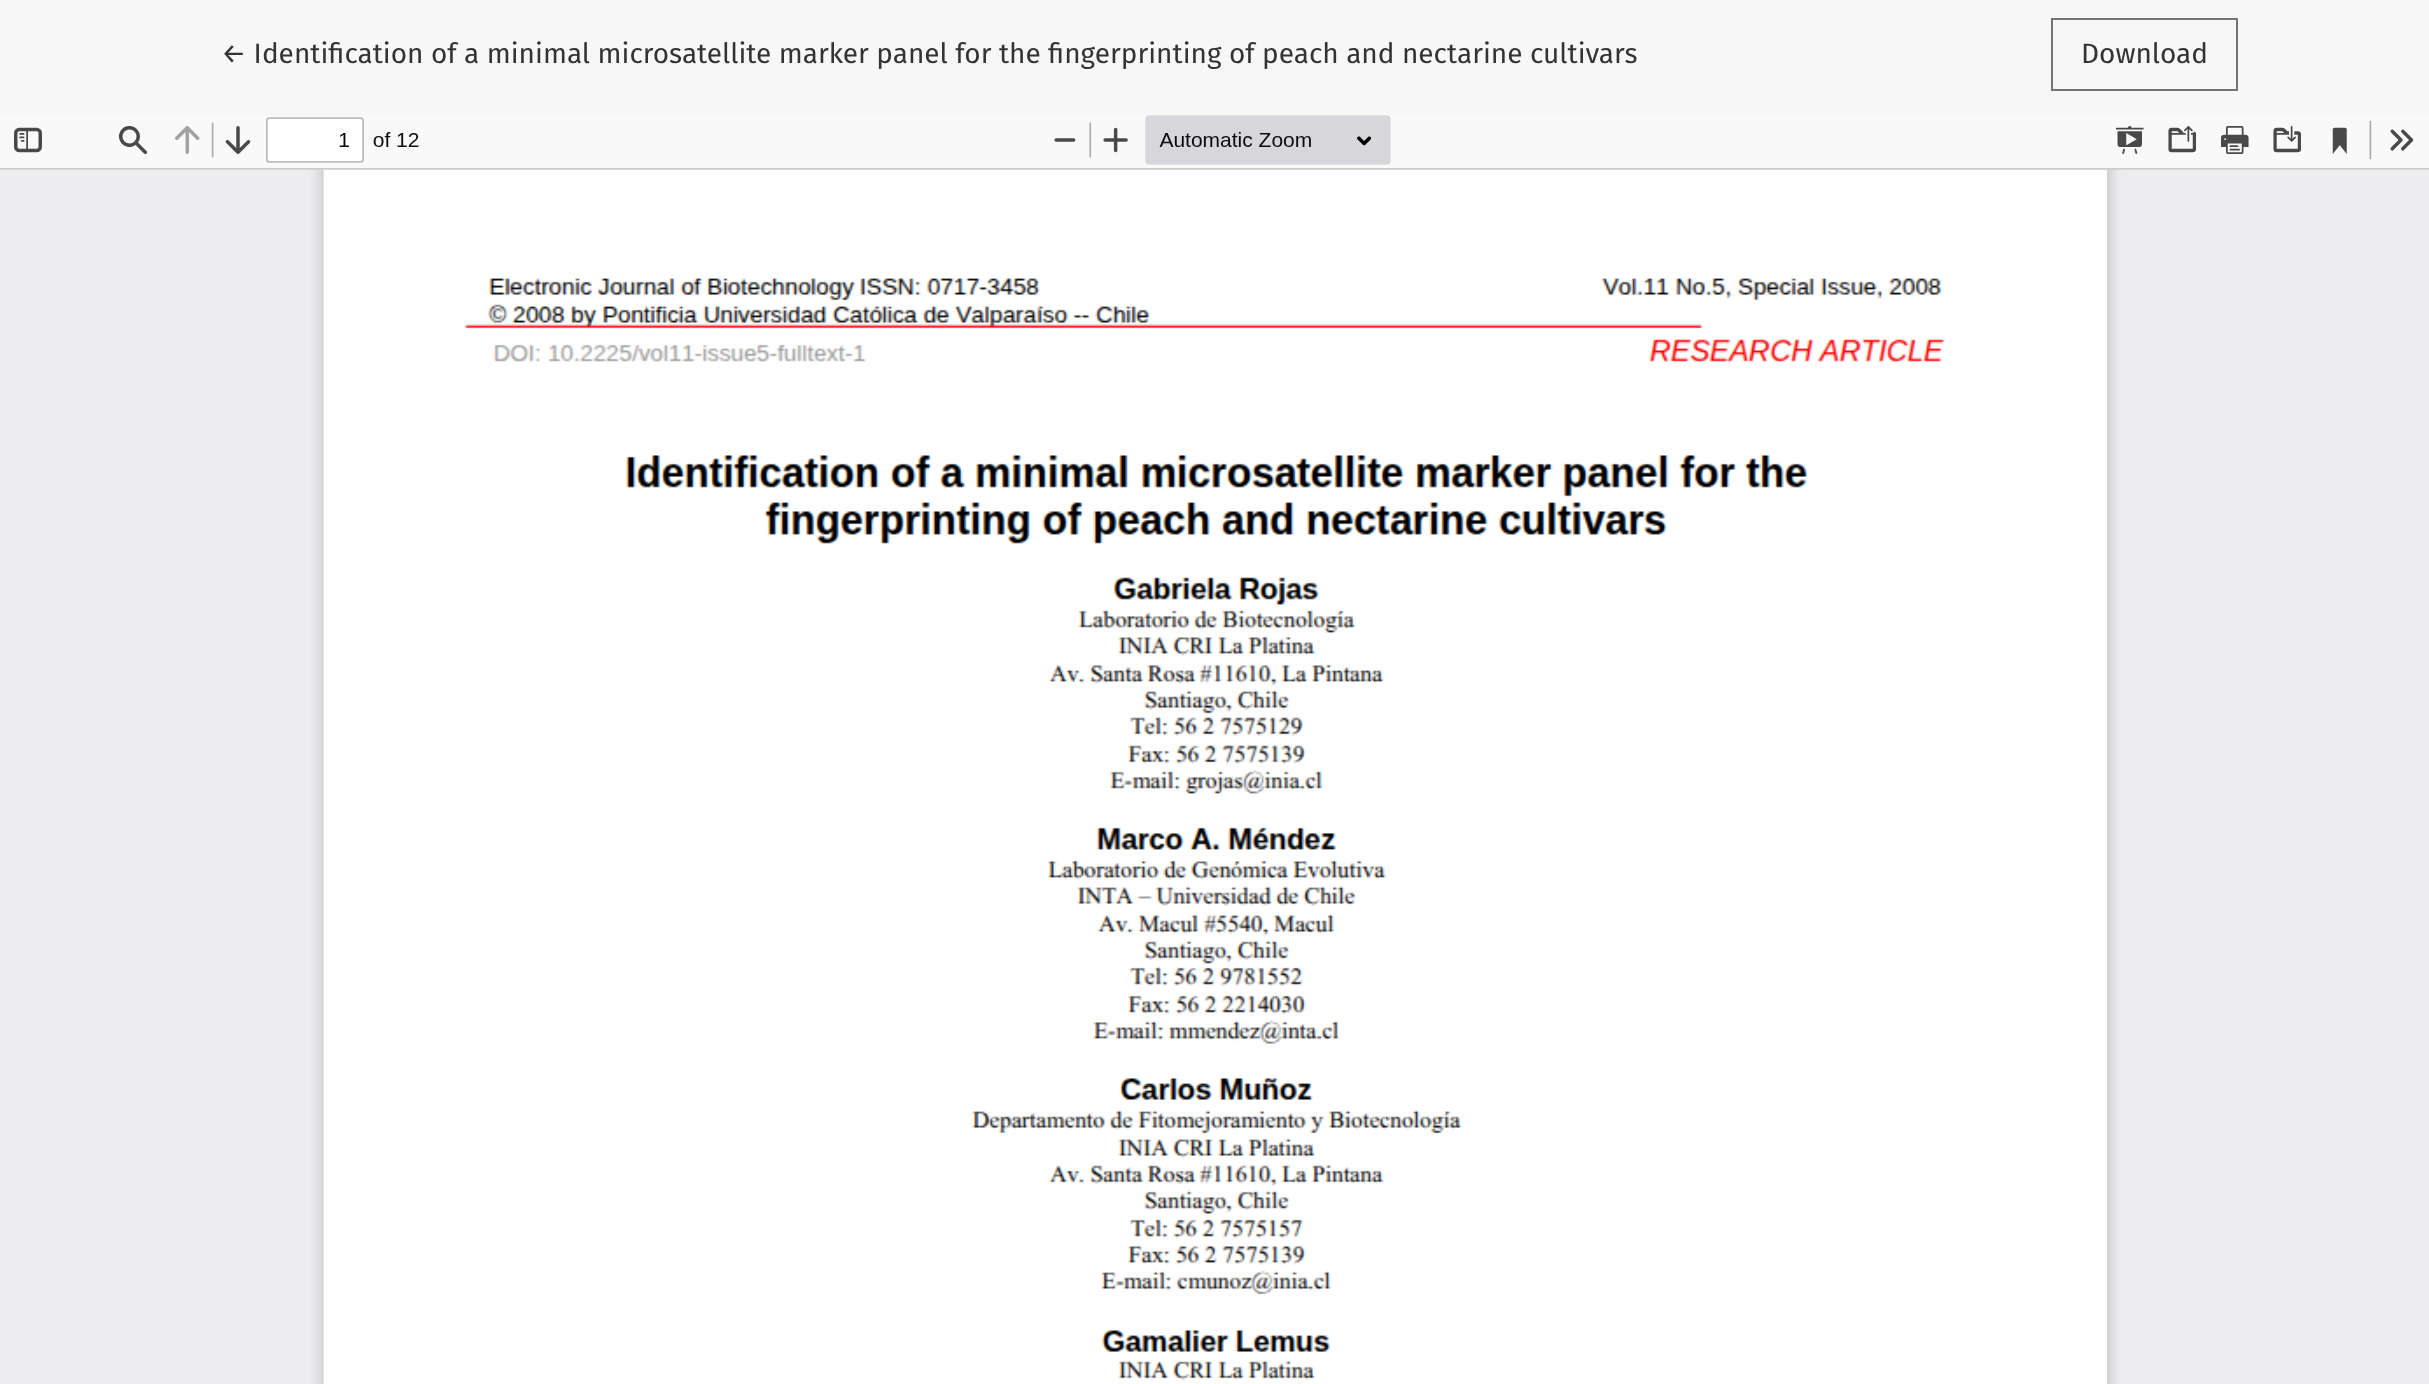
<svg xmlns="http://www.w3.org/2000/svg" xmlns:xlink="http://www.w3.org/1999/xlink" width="2429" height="1384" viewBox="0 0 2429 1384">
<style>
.cls-1{font:28px Fira Sans;fill:#333333}
</style>
<rect width="100%" height="100%" fill="#f7f7f7"/>
<rect fill="none" stroke="#757575" stroke-width="2" x="2052" y="19" width="185" height="71"/>
<image xlink:href="image0.png" x="0" y="115" width="2429" height="1269"/>
<text class="cls-1" x="221" y="63">← Identification of a minimal microsatellite marker panel for the fingerprinting of peach and nectarine cultivars</text>
<text class="cls-1" x="2081" y="63">Download</text>
</svg>
